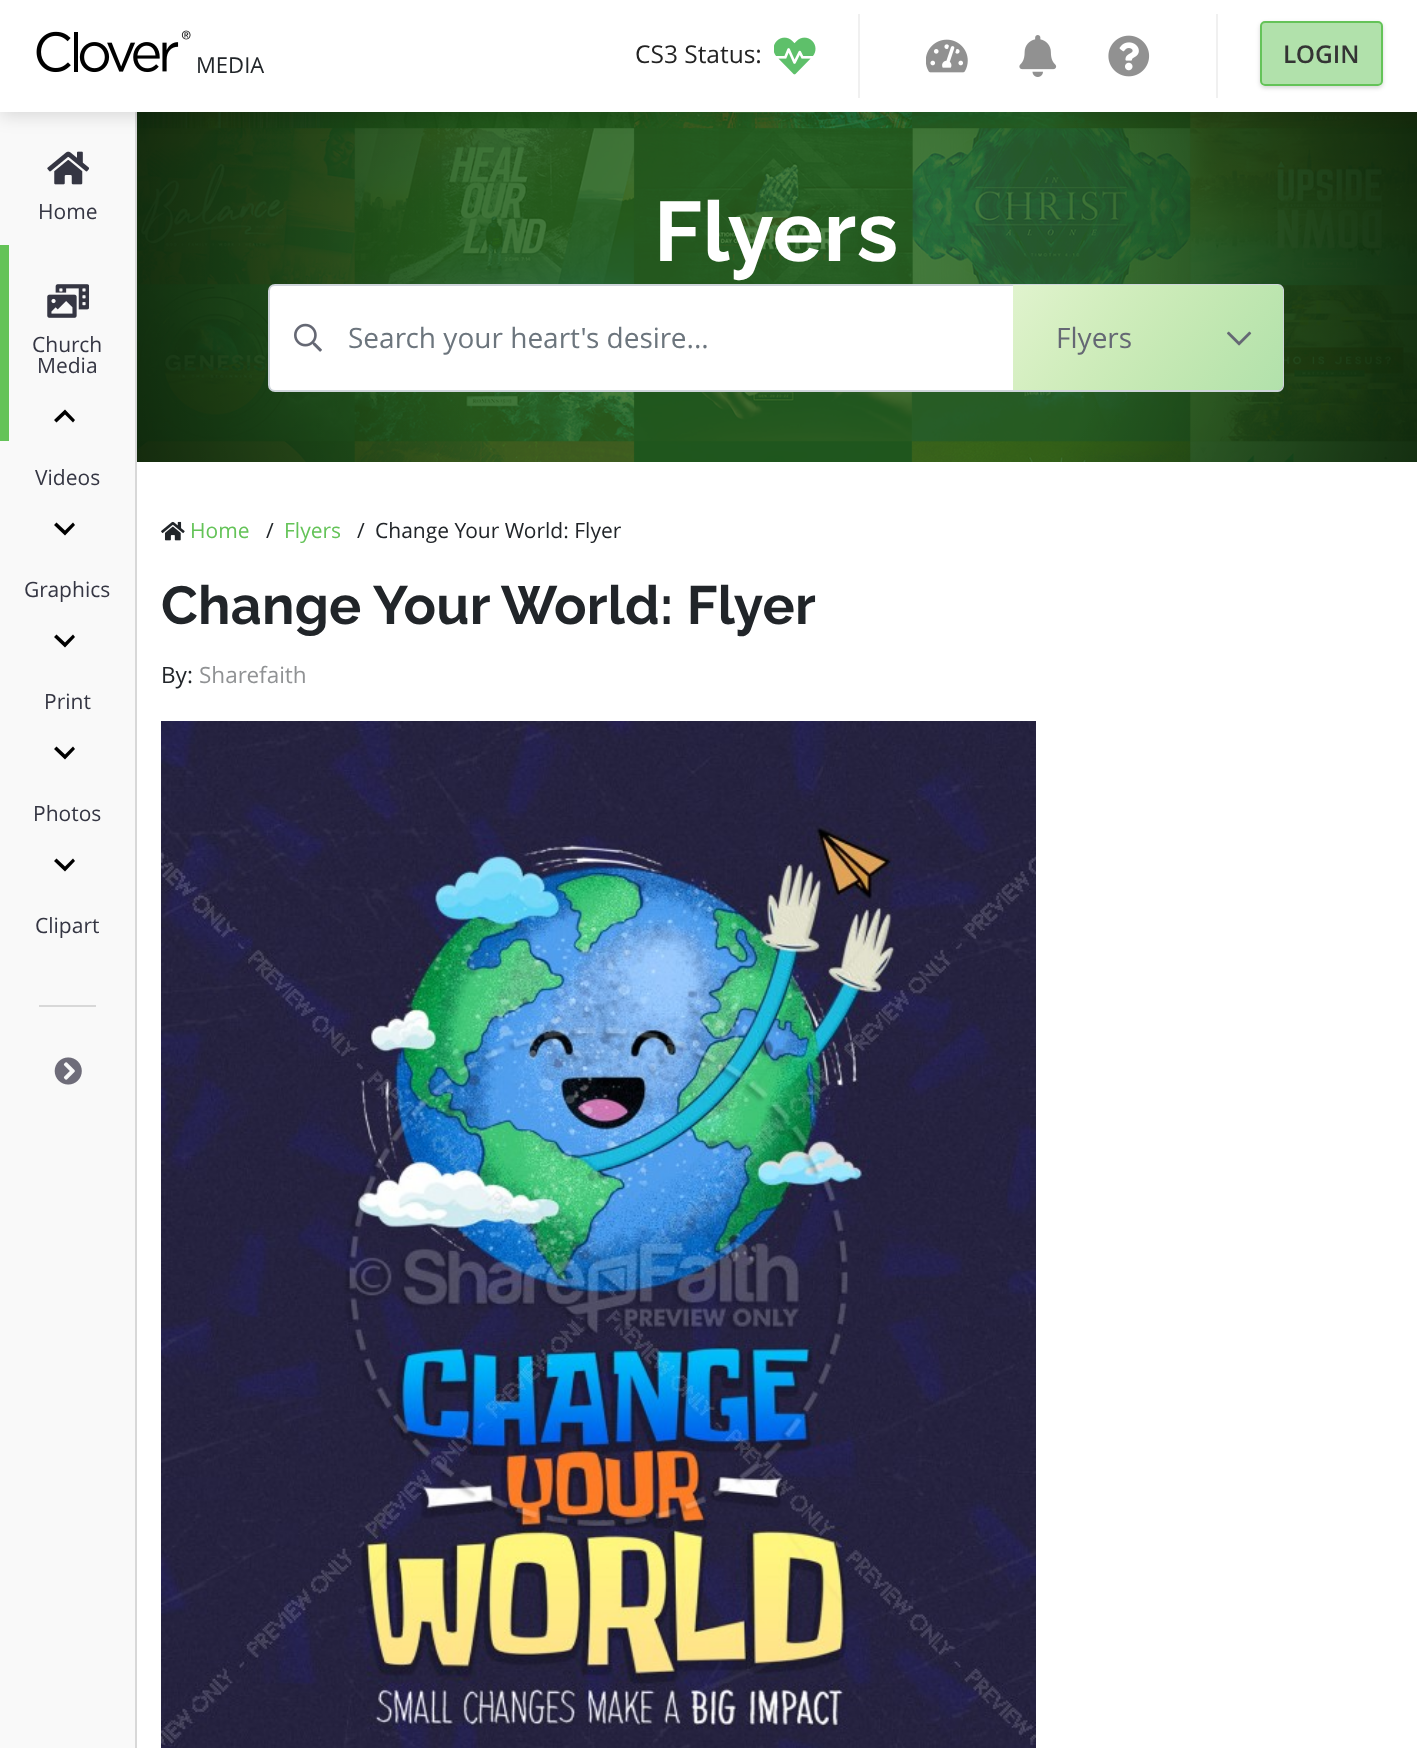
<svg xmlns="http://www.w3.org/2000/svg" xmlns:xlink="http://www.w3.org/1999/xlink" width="1417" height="1748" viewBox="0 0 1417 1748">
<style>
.cls-1{font:21px Open Sans;fill:#353643}
.cls-2{font:bold 84px Raleway;letter-spacing:0.5px;fill:#ffffff}
.cls-3{font:600 24.5px Open Sans;fill:#343434}
.cls-4{font:24.5px Open Sans;fill:#232323}
.cls-5{font:22px Open Sans;fill:#212529}
.cls-6{font:28px Open Sans;fill:#6c757d}
.cls-7{font:28px Open Sans;fill:#656874}
.cls-8{font:21px Open Sans;fill:#64c358}
.cls-9{font:21px Open Sans;fill:#212529}
.cls-10{font:bold 53.75px Raleway;letter-spacing:0.25px;fill:#212529}
.cls-11{font:22.5px Open Sans;fill:#212529}
.cls-12{font:22.5px Open Sans;fill:#909294}
</style>
<defs>
<radialGradient id="g1" gradientUnits="userSpaceOnUse" cx="776" cy="287" r="997"><stop offset="0.33" stop-color="#000000" stop-opacity="0"/><stop offset="1" stop-color="#000000"/></radialGradient>
<clipPath id="clip1"><path d="M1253 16H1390V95H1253ZM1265 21H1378C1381 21 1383 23 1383 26V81C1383 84 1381 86 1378 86H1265C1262 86 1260 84 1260 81V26C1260 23 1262 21 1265 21Z" clip-rule="evenodd"/></clipPath>
<linearGradient id="g2" gradientUnits="userSpaceOnUse" x1="1037" y1="254" x2="1259" y2="422"><stop offset="0" stop-color="#64c308" stop-opacity="0.2"/><stop offset="1" stop-color="#64c358" stop-opacity="0.5"/></linearGradient>
</defs>
<rect width="100%" height="100%" fill="#ffffff"/>
<rect fill="#f9f9f9" x="0" y="112" width="135" height="1636"/>
<rect fill="#d8d8d8" x="135" y="112" width="2" height="1636"/>
<image xlink:href="image5.png" x="47" y="151" width="42" height="34"/>
<rect fill="#64c358" x="0" y="245" width="9" height="196"/>
<image xlink:href="image6.png" x="47" y="284" width="42" height="34"/>
<path fill="#000000" d="M56.5 422.5L65 414.5L73 422.5L75 420L65 409.5L54 420Z"/>
<path fill="#000000" d="M56.5 522.5L65 530.5L73 522.5L75 525L65 535.5L54 525Z"/>
<path fill="#000000" d="M56.5 634.5L65 642.5L73 634.5L75 637L65 647.5L54 637Z"/>
<path fill="#000000" d="M56.5 746.5L65 754.5L73 746.5L75 749L65 759.5L54 749Z"/>
<path fill="#000000" d="M56.5 858.5L65 866.5L73 858.5L75 861L65 871.5L54 861Z"/>
<rect fill="#d8d8d8" x="39" y="1005" width="57" height="2"/>
<image xlink:href="image7.png" x="54" y="1057" width="28" height="28"/>
<image xlink:href="image8.png" x="137" y="112" width="1280" height="350"/>
<image xlink:href="image11.png" x="161" y="521" width="24" height="20"/>
<image xlink:href="image12.png" x="161" y="721" width="875" height="1027"/>
<text class="cls-1" x="38" y="219">Home</text>
<text class="cls-1" x="32" y="352">Church</text>
<text class="cls-1" x="37" y="373">Media</text>
<text class="cls-1" x="35" y="485">Videos</text>
<text class="cls-1" x="24" y="597">Graphics</text>
<text class="cls-1" x="44" y="709">Print</text>
<text class="cls-1" x="33" y="821">Photos</text>
<text class="cls-1" x="35" y="933">Clipart</text>
<text class="cls-2" x="654" y="261">Flyers</text>
<rect fill="url(#g1)" x="137" y="112" width="1280" height="350"/>
<rect fill="#000000" fill-opacity="0.13" filter="blur(9px)" x="0" y="4" width="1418" height="112"/>
<rect fill="#ffffff" x="0" y="0" width="1417" height="112"/>
<g clip-path="url(#clip1)">
<rect fill="#000000" fill-opacity="0.16" filter="blur(2px)" x="1260" y="23" width="123" height="65" rx="5"/>
</g>
<rect fill="#64c358" fill-opacity="0.5" stroke="#64c358" stroke-width="2" x="1261" y="22" width="121" height="63" rx="4"/>
<text class="cls-3" x="1283" y="63">LOGIN</text>
<rect fill="#f0f0f0" x="1216" y="14" width="2" height="84"/>
<image xlink:href="image4.png" x="1108" y="35" width="42" height="42"/>
<image xlink:href="image3.png" x="1019" y="35" width="38" height="42"/>
<image xlink:href="image2.png" x="926" y="39" width="42" height="34"/>
<image xlink:href="image1.png" x="774" y="37" width="42" height="38"/>
<text class="cls-4" x="635" y="63">CS3 Status:</text>
<image xlink:href="image0.png" x="36" y="30" width="155" height="43"/>
<rect fill="#f0f0f0" x="858" y="14" width="2" height="84"/>
<text class="cls-5" x="196" y="73">MEDIA</text>
<path fill="#ffffff" stroke="#ced4da" stroke-width="2" d="M275 285H1014V391H275C271.5 391 269 388.5 269 385V291C269 287.5 271.5 285 275 285Z"/>
<image xlink:href="image9.png" x="294" y="323" width="28" height="29"/>
<text class="cls-6" x="348" y="348">Search your heart's desire...</text>
<path fill="#ffffff" d="M1013 285H1278C1281 285 1283 287 1283 290V385C1283 388 1281 390 1278 390H1013Z"/>
<path fill="url(#g2)" d="M1013 285H1278C1281 285 1283 287 1283 290V385C1283 388 1281 390 1278 390H1013Z"/>
<path fill="#ced4da" fill-rule="evenodd" d="M1013 284H1278C1281 284 1284 287 1284 290V385C1284 389 1281 392 1278 392H1013ZM1013 285H1278C1280 285 1283 288 1283 290V385C1283 388 1280 390 1278 390H1013Z"/>
<text class="cls-7" x="1056" y="348">Flyers</text>
<image xlink:href="image10.png" x="1227" y="331" width="25" height="15"/>
<text class="cls-8" x="190" y="538">Home</text>
<text class="cls-9" x="266" y="538">/</text>
<text class="cls-8" x="284" y="538">Flyers</text>
<text class="cls-9" x="357" y="538">/</text>
<text class="cls-9" x="375" y="538">Change Your World: Flyer</text>
<text class="cls-10" x="161" y="624">Change Your World: Flyer</text>
<text class="cls-11" x="161" y="683">By:</text>
<text class="cls-12" x="199" y="683">Sharefaith</text>
</svg>
